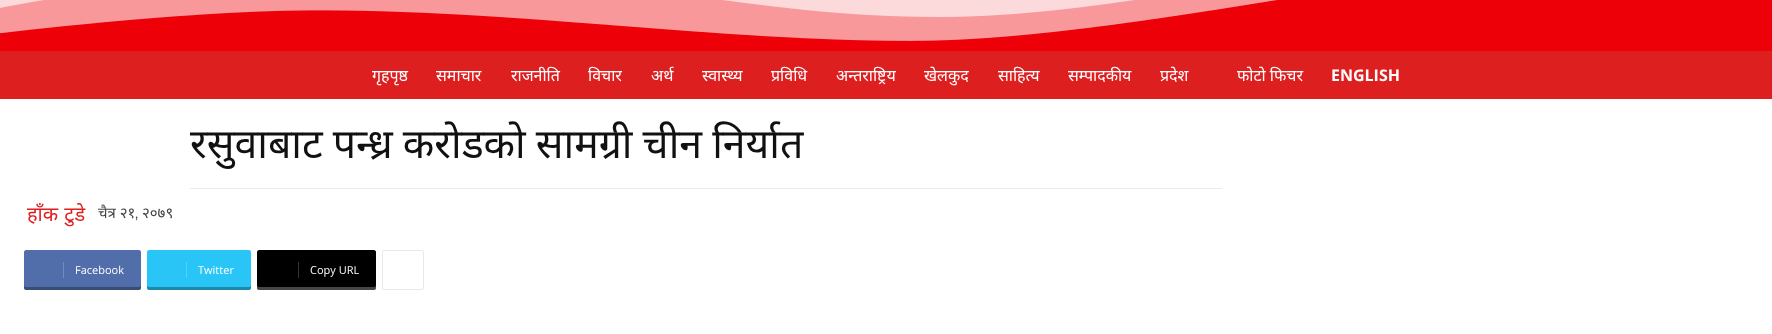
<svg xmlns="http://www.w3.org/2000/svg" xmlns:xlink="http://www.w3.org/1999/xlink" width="1772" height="334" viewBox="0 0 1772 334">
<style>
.cls-1{font:16px Noto Sans;fill:#ffffff}
.cls-2{font:bold 16px Open Sans;fill:#ffffff}
.cls-3{font:41px Noto Sans;fill:#111111}
.cls-4{font:20px Noto Sans;fill:#dd1f1f}
.cls-5{font:15px Noto Sans;fill:#444444}
.cls-6{font:15px Montserrat;fill:#444444}
.cls-7{font:11px Open Sans;fill:#ffffff}
</style>
<rect width="100%" height="100%" fill="#ffffff"/>
<image xlink:href="image0.png" x="0" y="0" width="1772" height="51"/>
<rect fill="#dd1f1f" x="0" y="51" width="1772" height="48"/>
<rect fill="#ebebeb" x="190" y="188" width="1032" height="1"/>
<path fill="#516eab" d="M63 250H139C140 250 141 251 141 252V288C141 289 140 290 139 290H63Z"/>
<path fill="#000000" fill-opacity="0.31" d="M63 287V290H139C140 290 141 289 141 288V285C141 286 140 287 139 287Z"/>
<path fill="#516eab" d="M26 250H69V290H26C25 290 24 289 24 288V252C24 251 25 250 26 250Z"/>
<path fill="#000000" fill-opacity="0.31" d="M24 285V288C24 289 25 290 26 290H69V287H26C25 287 24 286 24 285Z"/>
<rect fill="#748bbc" x="63" y="262" width="1" height="16"/>
<path fill="#29c5f6" d="M186 250H249C250 250 251 251 251 252V288C251 289 250 290 249 290H186Z"/>
<path fill="#000000" fill-opacity="0.31" d="M186 287V290H249C250 290 251 289 251 288V285L250 287Z"/>
<path fill="#29c5f6" d="M149 250H192V290H149C148 290 147 289 147 288V252C147 251 148 250 149 250Z"/>
<path fill="#000000" fill-opacity="0.31" d="M147 285V288C147 289 148 290 149 290H192V287H149C148 287 147 286 147 285Z"/>
<rect fill="#54d1f8" x="186" y="262" width="1" height="16"/>
<path fill="#000000" d="M298 250H374C375 250 376 251 376 252V288C376 289 375 290 374 290H298Z"/>
<path fill="#ffffff" fill-opacity="0.28" d="M298 287V290H374C375 290 376 289 376 288V285C376 286 375 287 374 287Z"/>
<path fill="#000000" d="M259 250H304V290H259C258 290 257 289 257 288V252C257 251 258 250 259 250Z"/>
<path fill="#ffffff" fill-opacity="0.28" d="M257 285V288C257 289 258 290 259 290H304V287H259C258 287 257 286 257 285Z"/>
<rect fill="#333333" x="298" y="262" width="1" height="16"/>
<rect fill="none" stroke="#e9e9e9" x="382.5" y="250.5" width="41" height="39" rx="1.5"/>
<text class="cls-1" x="372" y="81">गृहपृष्ठ</text>
<text class="cls-1" x="436" y="81">समाचार</text>
<text class="cls-1" x="511" y="81">राजनीति</text>
<text class="cls-1" x="588" y="81">विचार</text>
<text class="cls-1" x="651" y="81">अर्थ</text>
<text class="cls-1" x="702" y="81">स्वास्थ्य</text>
<text class="cls-1" x="771" y="81">प्रविधि</text>
<text class="cls-1" x="836" y="81">अन्तराष्ट्रिय</text>
<text class="cls-1" x="924" y="81">खेलकुद</text>
<text class="cls-1" x="998" y="81">साहित्य</text>
<text class="cls-1" x="1068" y="81">सम्पादकीय</text>
<text class="cls-1" x="1160" y="81">प्रदेश</text>
<text class="cls-1" x="1237" y="81">फाेटाे फिचर</text>
<text class="cls-2" x="1331" y="81">ENGLISH</text>
<text class="cls-3" x="190" y="158" word-spacing="-0.5">रसुवाबाट पन्ध्र करोडको सामग्री चीन निर्यात</text>
<text class="cls-4" x="27" y="221" word-spacing="1">हाँक टुडे</text>
<text class="cls-5" x="98" y="218">चैत्र २१</text>
<text class="cls-6" x="135" y="218">,</text>
<text class="cls-5" x="142" y="218">२०७९</text>
<text class="cls-7" x="75" y="274">Facebook</text>
<text class="cls-7" x="198" y="274">Twitter</text>
<text class="cls-7" x="310" y="274">Copy URL</text>
</svg>
